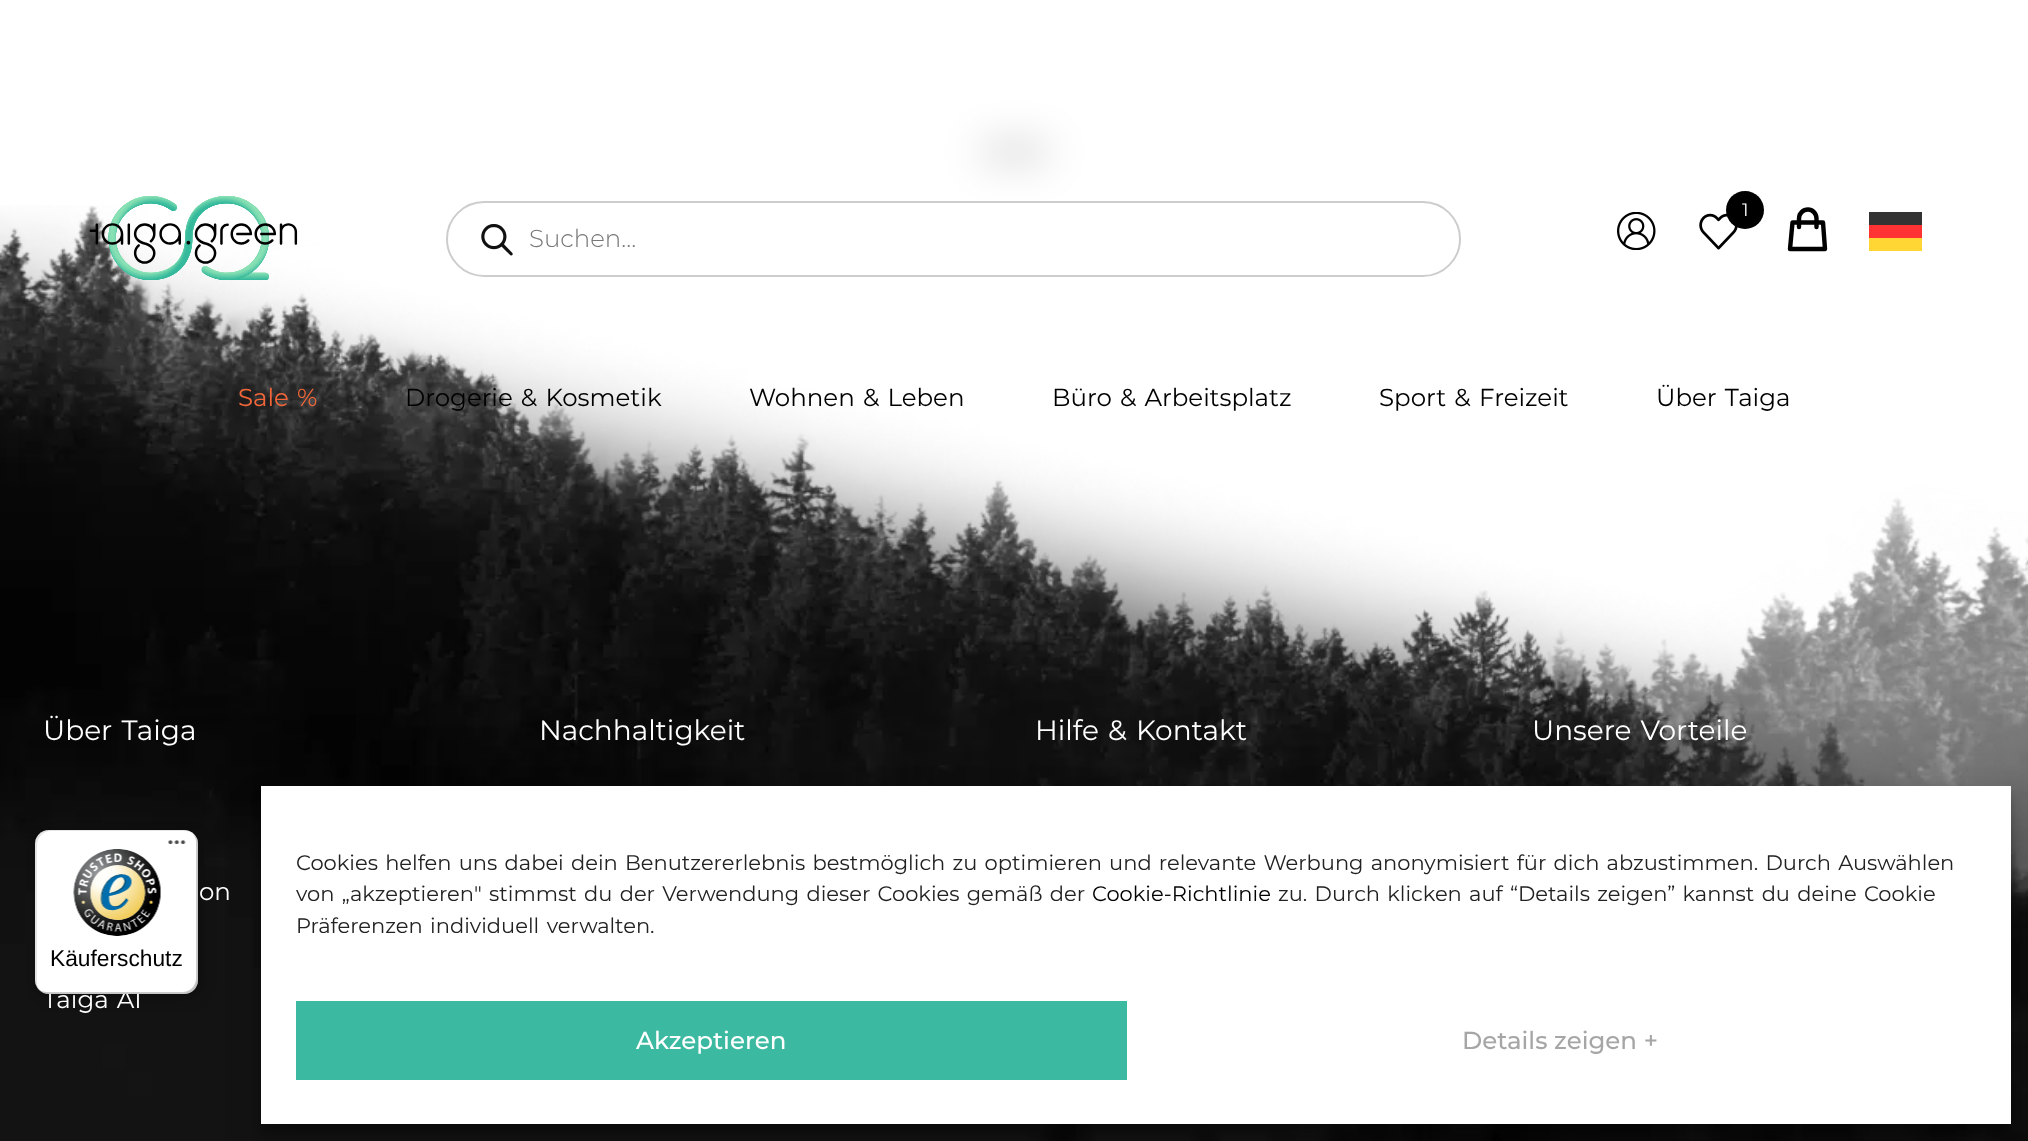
<svg xmlns="http://www.w3.org/2000/svg" xmlns:xlink="http://www.w3.org/1999/xlink" width="2028" height="1141" viewBox="0 0 2028 1141">
<style>
.cls-1{font:18px Montserrat;fill:#ffffff}
.cls-2{font:300 24.5px Montserrat;fill:#777777}
.cls-3{font:24.5px Montserrat;fill:#f36639}
.cls-4{font:24.5px Montserrat;fill:#000000}
.cls-5{font:28px Montserrat;fill:#ffffff}
.cls-6{font:24.5px Montserrat;fill:#ffffff}
.cls-7{font:22.75px Liberation Sans;fill:#000000}
.cls-8{font:21px Montserrat;fill:#222222}
.cls-9{font:21px Montserrat;fill:#000000}
.cls-10{font:500 24.5px Montserrat;fill:#ffffff}
.cls-11{font:500 24.5px Montserrat;fill:#a6a6a6}
</style>
<rect width="100%" height="100%" fill="#ffffff"/>
<image xlink:href="image4.png" x="0" y="205" width="2028" height="936"/>
<image xlink:href="image0.png" x="89" y="196" width="209" height="84"/>
<image xlink:href="image1.png" x="1617" y="212" width="39" height="38"/>
<image xlink:href="image2.png" x="1699" y="213" width="39" height="37"/>
<circle fill="#000000" cx="1745" cy="210" r="19"/>
<path fill="none" stroke="#000000" stroke-width="4.4" stroke-linecap="round" stroke-linejoin="round" d="M1816.5 227V218.5C1816.5 213.5 1812.5 209.5 1808 209.5C1803 209.5 1799 213.5 1799 218.5V227M1792.5 222.5H1823L1825 249H1790Z"/>
<rect fill="#ffd633" x="1869" y="238" width="53" height="13"/>
<rect fill="#333333" x="1869" y="212" width="53" height="13"/>
<rect fill="#ff3333" x="1869" y="225" width="53" height="13"/>
<rect fill="#000000" fill-opacity="0.25" filter="blur(21px)" x="982" y="145" width="66" height="14"/>
<rect fill="none" stroke="#cdcdcd" stroke-width="2" x="447" y="202" width="1013" height="74" rx="37"/>
<image xlink:href="image3.png" x="481" y="224" width="32" height="32"/>
<rect fill="#000000" fill-opacity="0.15" filter="blur(7px)" x="40" y="835" width="163" height="164" rx="14"/>
<rect fill="#000000" fill-opacity="0.15" filter="blur(2px)" x="37" y="831" width="163" height="165" rx="14"/>
<rect fill="#ffffff" x="35" y="830" width="163" height="164" rx="14"/>
<path fill="#000000" fill-opacity="0.1" d="M51 831H186C188 831 191 832 193 833C190 831 187 830 184 830H49C41 830 35 836 35 844V980C35 985 37 989 41 991C38 989 37 985 37 982V845C37 838 43 831 51 831Z"/>
<rect fill="#000000" fill-opacity="0.23" filter="blur(5px)" x="261" y="796" width="1750" height="338"/>
<rect fill="#000000" fill-opacity="0.19" filter="blur(17.5px)" x="261" y="803" width="1750" height="338"/>
<rect fill="#ffffff" x="261" y="786" width="1750" height="338"/>
<rect fill="#3cbaa1" x="296" y="1001" width="831" height="79"/>
<text class="cls-1" x="1742" y="216">1</text>
<text class="cls-2" x="529" y="247">Suchen…</text>
<text class="cls-3" x="238" y="406" word-spacing="1.75">Sale %</text>
<text class="cls-4" x="405" y="406" word-spacing="1.75">Drogerie &amp; Kosmetik</text>
<text class="cls-4" x="749" y="406" word-spacing="1.75">Wohnen &amp; Leben</text>
<text class="cls-4" x="1052" y="406" word-spacing="1.75">Büro &amp; Arbeitsplatz</text>
<text class="cls-4" x="1379" y="406" word-spacing="1.75">Sport &amp; Freizeit</text>
<text class="cls-4" x="1656" y="406" word-spacing="1.75">Über Taiga</text>
<text class="cls-5" x="43" y="740" word-spacing="1.75">Über Taiga</text>
<text class="cls-6" x="199" y="900" word-spacing="1.75">on</text>
<text class="cls-6" x="43" y="1008" word-spacing="1.75">Taiga AI</text>
<text class="cls-5" x="539" y="740">Nachhaltigkeit</text>
<text class="cls-5" x="1035" y="740" word-spacing="1.75">Hilfe &amp; Kontakt</text>
<text class="cls-5" x="1532" y="740" word-spacing="1.75">Unsere Vorteile</text>
<path fill="#000000" fill-opacity="0.2" d="M38 988C40 992 44 994 49 994H184C192 994 198 988 198 980V844C198 840 196 836 193 834C195 836 196 839 196 842V978C196 986 190 992 182 992H47C44 992 40 991 38 988Z"/>
<path fill="#323232" fill-opacity="0.2" d="M40 990C42 993 45 994 49 994H184C192 994 198 988 198 980V844C198 841 197 838 195 835C196 837 197 840 197 842V979C197 987 190 993 183 993H48C45 993 42 992 40 990Z"/>
<path fill="#ffffff" fill-opacity="0.3" d="M40 990C42 993 45 994 49 994H184C192 994 198 988 198 980V844C198 840 197 837 194 835C196 837 197 840 197 843V979C197 987 191 993 183 993H48C45 993 42 992 40 990Z"/>
<image xlink:href="image5.png" x="168" y="840" width="18" height="4"/>
<image xlink:href="image6.png" x="73" y="849" width="88" height="87"/>
<text class="cls-7" x="50" y="966">Käuferschutz</text>
<text class="cls-8"><tspan x="296" y="870" word-spacing="1.75">Cookies helfen uns dabei dein Benutzererlebnis bestmöglich zu optimieren und relevante Werbung anonymisiert für dich abzustimmen. Durch Auswählen</tspan><tspan x="296" y="901" word-spacing="1.75">von „akzeptieren" stimmst du der Verwendung dieser Cookies gemäß der</tspan></text>
<text class="cls-9" x="1092" y="901">Cookie-Richtlinie</text>
<text class="cls-8" x="1278" y="901" word-spacing="1.75">zu. Durch klicken auf “Details zeigen” kannst du deine Cookie</text>
<text class="cls-8" x="296" y="933" word-spacing="2">Präferenzen individuell verwalten.</text>
<text class="cls-10" x="636" y="1049">Akzeptieren</text>
<text class="cls-11" x="1462" y="1049">Details zeigen +</text>
</svg>
